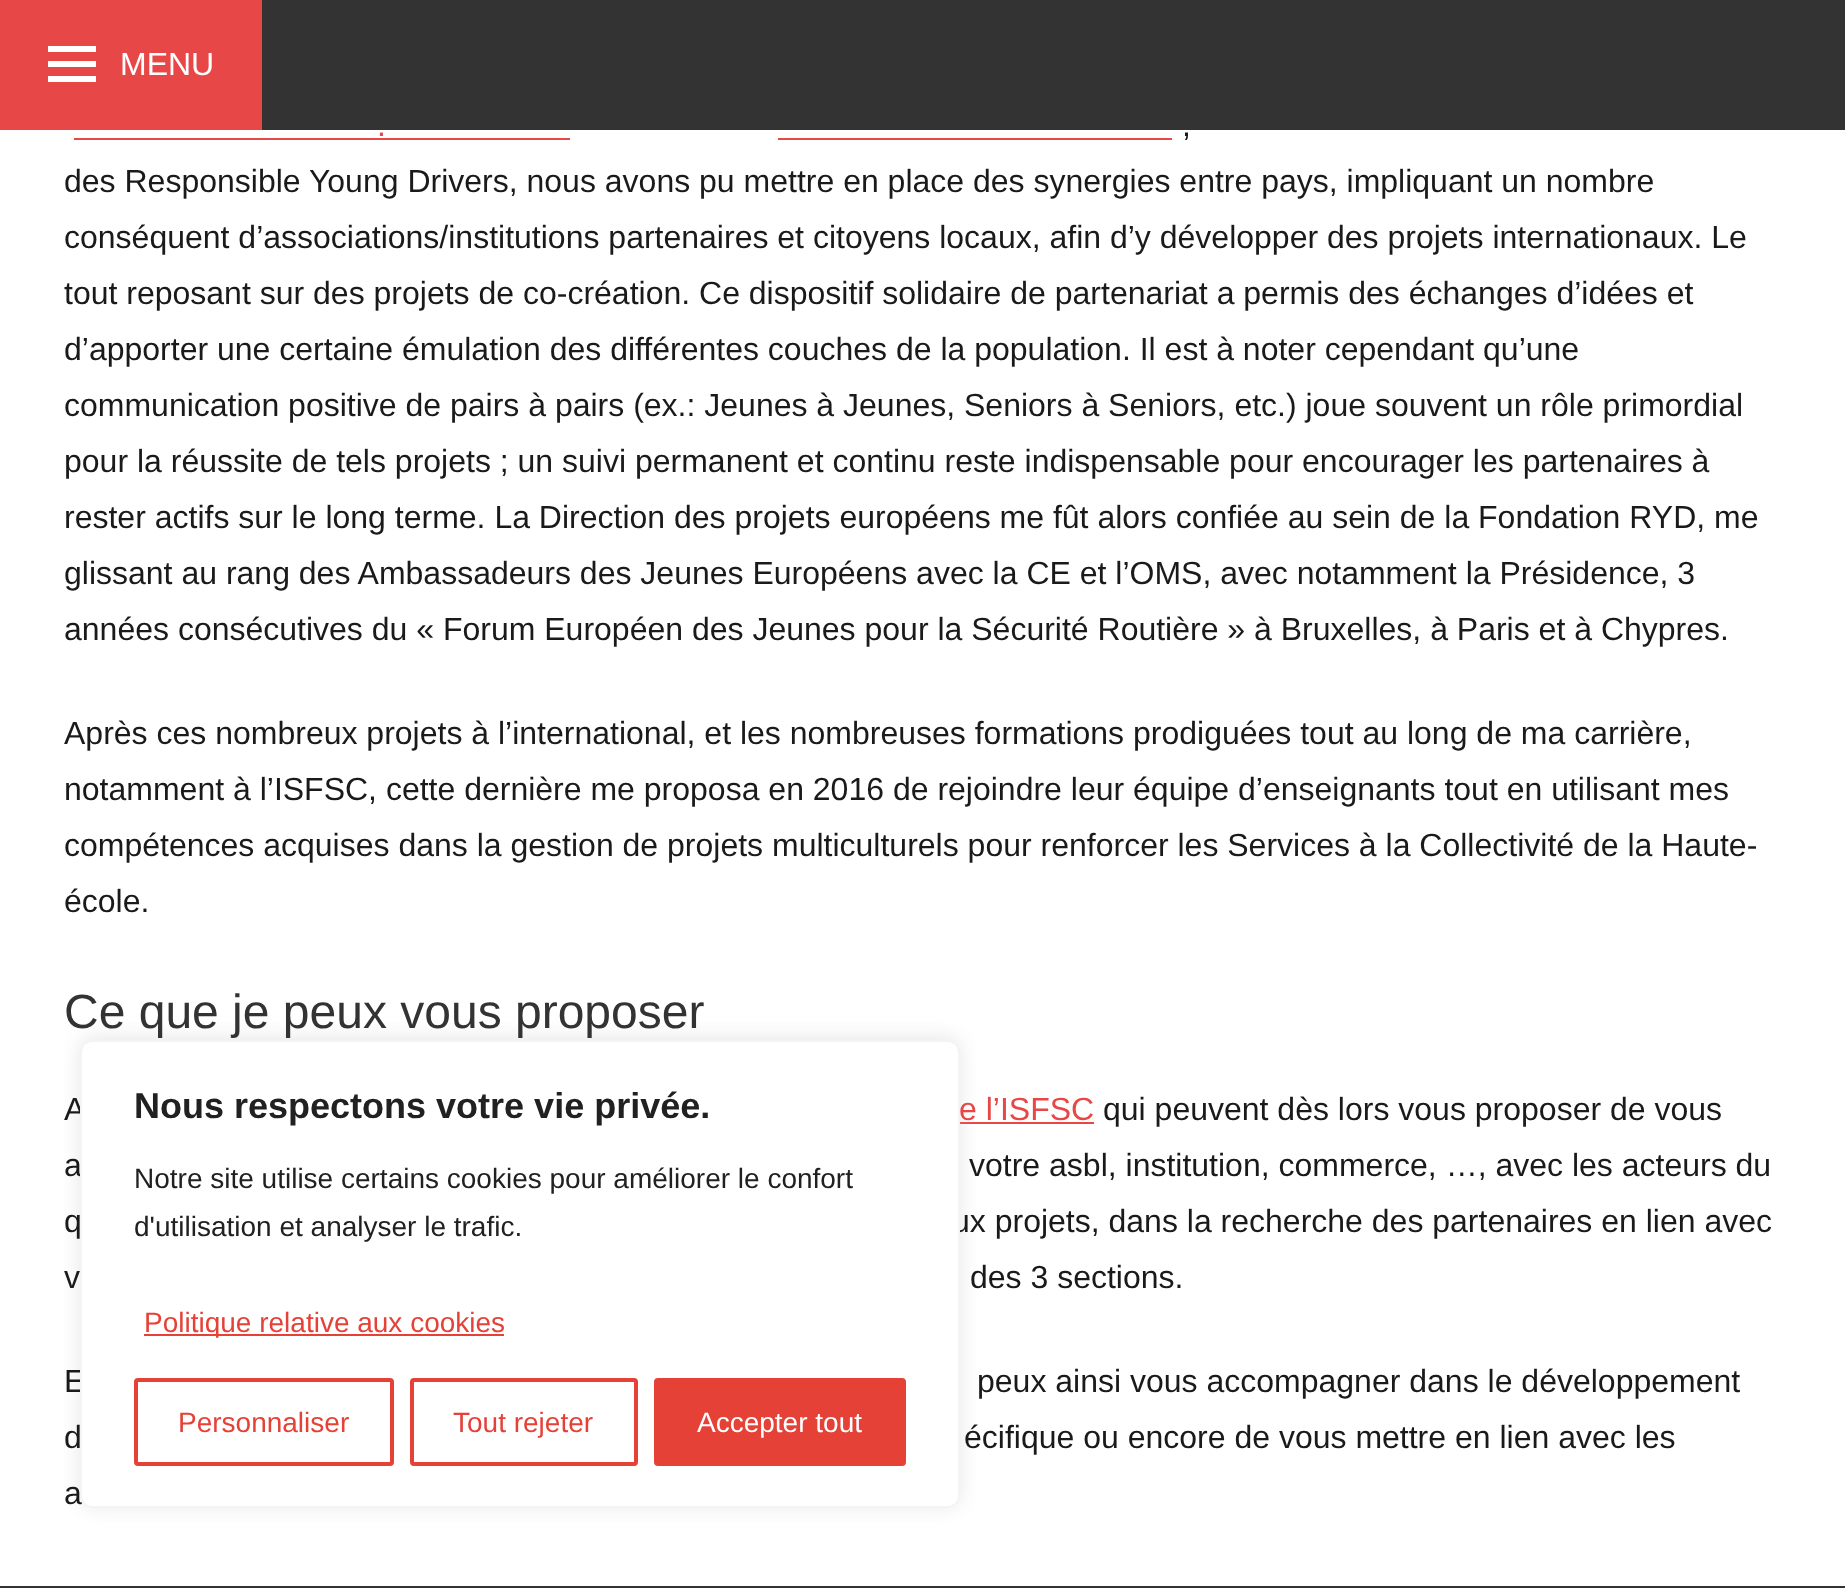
<svg xmlns="http://www.w3.org/2000/svg" xmlns:xlink="http://www.w3.org/1999/xlink" width="1845" height="1588" viewBox="0 0 1845 1588">
<style>
.cls-1{font:32px Liberation Sans;fill:#ffffff}
.cls-2{font:32px Liberation Sans;fill:#e84747}
.cls-3{font:32px Liberation Sans;fill:#1a1a1a}
.cls-4{font:48px Liberation Sans;fill:#333333}
.cls-5{font:bold 36px Liberation Sans;fill:#212121}
.cls-6{font:28px Liberation Sans;fill:#212121}
.cls-7{font:28px Liberation Sans;fill:#e54137}
.cls-8{font:28px Liberation Sans;fill:#ffffff}
</style>
<rect width="100%" height="100%" fill="#ffffff"/>
<rect fill="#333333" x="262" y="0" width="1583" height="130"/>
<rect fill="#e84747" x="0" y="0" width="262" height="130"/>
<image xlink:href="image0.png" x="48" y="46" width="48" height="36"/>
<rect fill="#e84747" x="74" y="138" width="496" height="2"/>
<rect fill="#e84747" x="778" y="138" width="394" height="2"/>
<rect fill="#e84747" x="960" y="1122" width="134" height="2"/>
<rect fill="#333333" x="0" y="1586" width="1845" height="2"/>
<rect fill="#acabab" fill-opacity="0.3" filter="blur(10px)" x="80" y="1038" width="880" height="468" rx="12"/>
<text class="cls-1" x="120" y="75">MENU</text>
<text class="cls-2" x="377" y="136">.</text>
<text class="cls-3" x="1182" y="136">,</text>
<text class="cls-3"><tspan x="64" y="192">des Responsible Young Drivers, nous avons pu mettre en place des synergies entre pays, impliquant un nombre</tspan><tspan x="64" y="248">conséquent d’associations/institutions partenaires et citoyens locaux, afin d’y développer des projets internationaux. Le</tspan><tspan x="64" y="304">tout reposant sur des projets de co-création. Ce dispositif solidaire de partenariat a permis des échanges d’idées et</tspan><tspan x="64" y="360">d’apporter une certaine émulation des différentes couches de la population. Il est à noter cependant qu’une</tspan><tspan x="64" y="416">communication positive de pairs à pairs (ex.: Jeunes à Jeunes, Seniors à Seniors, etc.) joue souvent un rôle primordial</tspan><tspan x="64" y="472">pour la réussite de tels projets ; un suivi permanent et continu reste indispensable pour encourager les partenaires à</tspan><tspan x="64" y="528">rester actifs sur le long terme. La Direction des projets européens me fût alors confiée au sein de la Fondation RYD, me</tspan><tspan x="64" y="584">glissant au rang des Ambassadeurs des Jeunes Européens avec la CE et l’OMS, avec notamment la Présidence, 3</tspan><tspan x="64" y="640">années consécutives du « Forum Européen des Jeunes pour la Sécurité Routière » à Bruxelles, à Paris et à Chypres.</tspan></text>
<text class="cls-3"><tspan x="64" y="744">Après ces nombreux projets à l’international, et les nombreuses formations prodiguées tout au long de ma carrière,</tspan><tspan x="64" y="800">notamment à l’ISFSC, cette dernière me proposa en 2016 de rejoindre leur équipe d’enseignants tout en utilisant mes</tspan><tspan x="64" y="856">compétences acquises dans la gestion de projets multiculturels pour renforcer les Services à la Collectivité de la Haute-</tspan><tspan x="64" y="912">école.</tspan></text>
<text class="cls-4" x="64" y="1028">Ce que je peux vous proposer</text>
<text class="cls-3" x="64" y="1120">A</text>
<text class="cls-2" x="959" y="1120">e l’ISFSC</text>
<text class="cls-3" x="1103" y="1120">qui peuvent dès lors vous proposer de vous</text>
<text class="cls-3" x="64" y="1176">a</text>
<text class="cls-3" x="969" y="1176">votre asbl, institution, commerce, …, avec les acteurs du</text>
<text class="cls-3" x="64" y="1232">q</text>
<text class="cls-3" x="952" y="1232">ux projets, dans la recherche des partenaires en lien avec</text>
<text class="cls-3" x="64" y="1288">v</text>
<text class="cls-3" x="970" y="1288">des 3 sections.</text>
<text class="cls-3" x="64" y="1392">E</text>
<text class="cls-3" x="977" y="1392">peux ainsi vous accompagner dans le développement</text>
<text class="cls-3" x="64" y="1448">d</text>
<text class="cls-3" x="964" y="1448">écifique ou encore de vous mettre en lien avec les</text>
<text class="cls-3" x="64" y="1504">a</text>
<rect fill="#ffffff" stroke="#f4f4f4" stroke-width="2" x="81" y="1041" width="878" height="466" rx="11"/>
<text class="cls-5" x="134" y="1118">Nous respectons votre vie privée.</text>
<text class="cls-6"><tspan x="134" y="1188">Notre site utilise certains cookies pour améliorer le confort</tspan><tspan x="134" y="1236">d'utilisation et analyser le trafic.</tspan></text>
<rect fill="#e54137" x="144" y="1334" width="360" height="2"/>
<text class="cls-7" x="144" y="1332">Politique relative aux cookies</text>
<rect fill="none" stroke="#e54137" stroke-width="4" x="136" y="1380" width="256" height="84" rx="2"/>
<text class="cls-7" x="178" y="1432">Personnaliser</text>
<rect fill="none" stroke="#e54137" stroke-width="4" x="412" y="1380" width="224" height="84" rx="2"/>
<text class="cls-7" x="453" y="1432">Tout rejeter</text>
<rect fill="#e54137" stroke="#e54137" stroke-width="4" x="656" y="1380" width="248" height="84" rx="2"/>
<text class="cls-8" x="697" y="1432">Accepter tout</text>
</svg>
